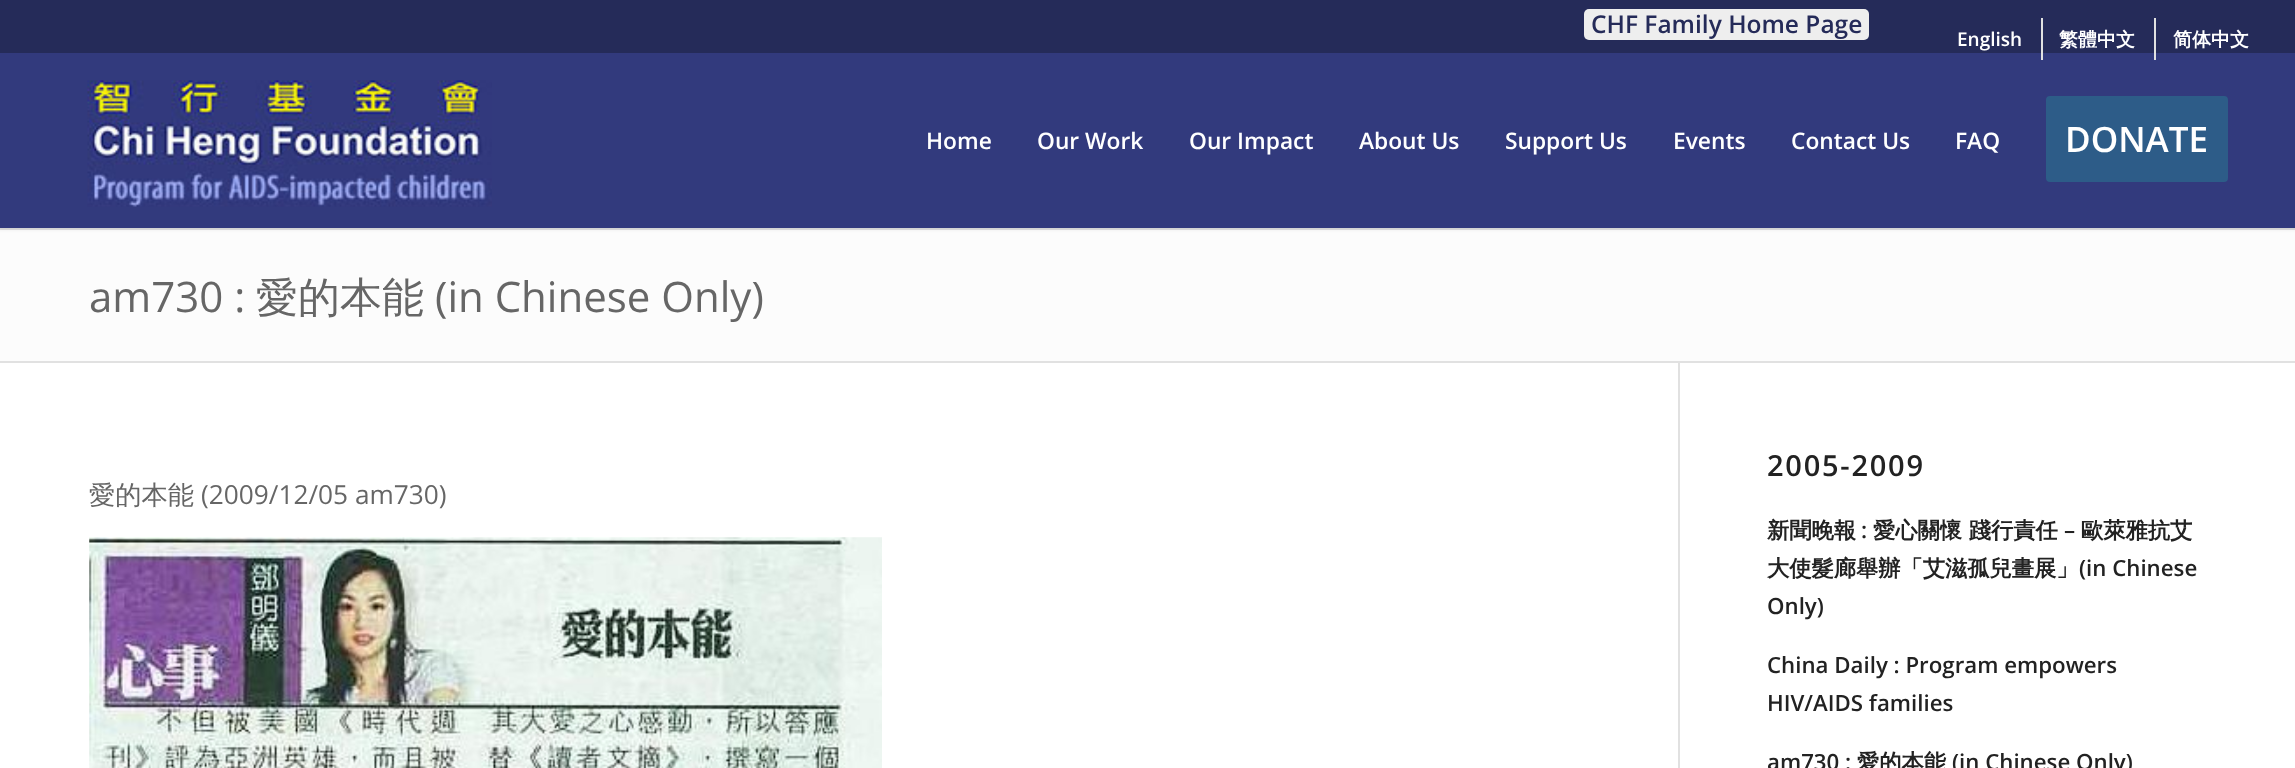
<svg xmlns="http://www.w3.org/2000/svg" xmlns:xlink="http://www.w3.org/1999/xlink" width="2295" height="768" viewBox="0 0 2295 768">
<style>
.cls-1{font:600 24.5px Open Sans;fill:#252b59}
.cls-2{font:600 19px Open Sans;fill:#ffffff}
.cls-3{font:bold 19px WenQuanYi Zen Hei;fill:#ffffff}
.cls-4{font:600 22.75px Open Sans;fill:#ffffff}
.cls-5{font:600 35px Open Sans;fill:#ffffff}
.cls-6{font:42px Open Sans;fill:#666666}
.cls-7{font:500 42px WenQuanYi Zen Hei;fill:#666666}
.cls-8{font:500 26.25px WenQuanYi Zen Hei;fill:#666666}
.cls-9{font:26.25px Open Sans;fill:#666666}
.cls-10{font:600 29px Open Sans;letter-spacing:1.75px;fill:#222222}
.cls-11{font:bold 22.25px WenQuanYi Zen Hei;fill:#222222}
.cls-12{font:600 22.25px Open Sans;fill:#222222}
</style>
<defs>
<clipPath id="clip1"><rect x="1768" y="744" width="439" height="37"/></clipPath>
</defs>
<rect width="100%" height="100%" fill="#ffffff"/>
<rect fill="#fcfcfc" x="0" y="230" width="2295" height="131"/>
<rect fill="#e1e1e1" x="0" y="228" width="2295" height="2"/>
<rect fill="#000000" fill-opacity="0.1" filter="blur(2px)" x="-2" y="-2" width="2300" height="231"/>
<rect fill="#252b59" x="0" y="0" width="2295" height="53"/>
<rect fill="#eeeeee" x="1584" y="9" width="285" height="31" rx="5"/>
<rect fill="#323a7d" x="0" y="53" width="2295" height="175"/>
<rect fill="#e1e1e1" x="2041" y="18" width="2" height="42"/>
<rect fill="#e1e1e1" x="2154" y="18" width="2" height="42"/>
<image xlink:href="image0.png" x="87" y="80" width="405" height="127"/>
<rect fill="#2d5c88" stroke="#2d5c88" stroke-width="4" x="2048" y="98" width="178" height="82" rx="2"/>
<rect fill="#e1e1e1" x="0" y="361" width="2295" height="2"/>
<rect fill="#e1e1e1" x="1678" y="362" width="2" height="406"/>
<image xlink:href="image1.png" x="89" y="537" width="793" height="231"/>
<text class="cls-1" x="1591" y="33">CHF Family Home Page</text>
<text class="cls-2" x="1957" y="46">English</text>
<text class="cls-3" x="2059" y="46">繁體中文</text>
<text class="cls-3" x="2173" y="46">简体中文</text>
<text class="cls-4" x="926" y="149">Home</text>
<text class="cls-4" x="1037" y="149">Our Work</text>
<text class="cls-4" x="1189" y="149">Our Impact</text>
<text class="cls-4" x="1359" y="149">About Us</text>
<text class="cls-4" x="1505" y="149">Support Us</text>
<text class="cls-4" x="1673" y="149">Events</text>
<text class="cls-4" x="1791" y="149">Contact Us</text>
<text class="cls-4" x="1955" y="149">FAQ</text>
<text class="cls-5" x="2065" y="152">DONATE</text>
<text class="cls-6" x="89" y="312">am730 :</text>
<text class="cls-7" x="256" y="312">愛的本能</text>
<text class="cls-6" x="435" y="312">(in Chinese Only)</text>
<text class="cls-8" x="89" y="504">愛的本能</text>
<text class="cls-9" x="201" y="504">(2009/12/05 am730)</text>
<text class="cls-10" x="1767" y="476">2005-2009</text>
<text class="cls-11" x="1767" y="538">新聞晚報</text>
<text class="cls-12" x="1861" y="538">:</text>
<text class="cls-11" x="1873" y="538">愛心關懷 踐行責任</text>
<text class="cls-12" x="2064" y="538">–</text>
<text class="cls-11" x="2081" y="538">歐萊雅抗艾</text>
<text class="cls-11" x="1767" y="576">大使髮廊舉辦「艾滋孤兒畫展」</text>
<text class="cls-12" x="2079" y="576">(in Chinese</text>
<text class="cls-12" x="1767" y="614">Only)</text>
<text class="cls-12"><tspan x="1767" y="673">China Daily : Program empowers</tspan><tspan x="1767" y="711">HIV/AIDS families</tspan></text>
<g clip-path="url(#clip1)">
<text class="cls-12" x="1767" y="770">am730 :</text>
</g>
<text class="cls-11" x="1857" y="770">愛的本能</text>
<text class="cls-12" x="1952" y="770">(in Chinese Only)</text>
</svg>
